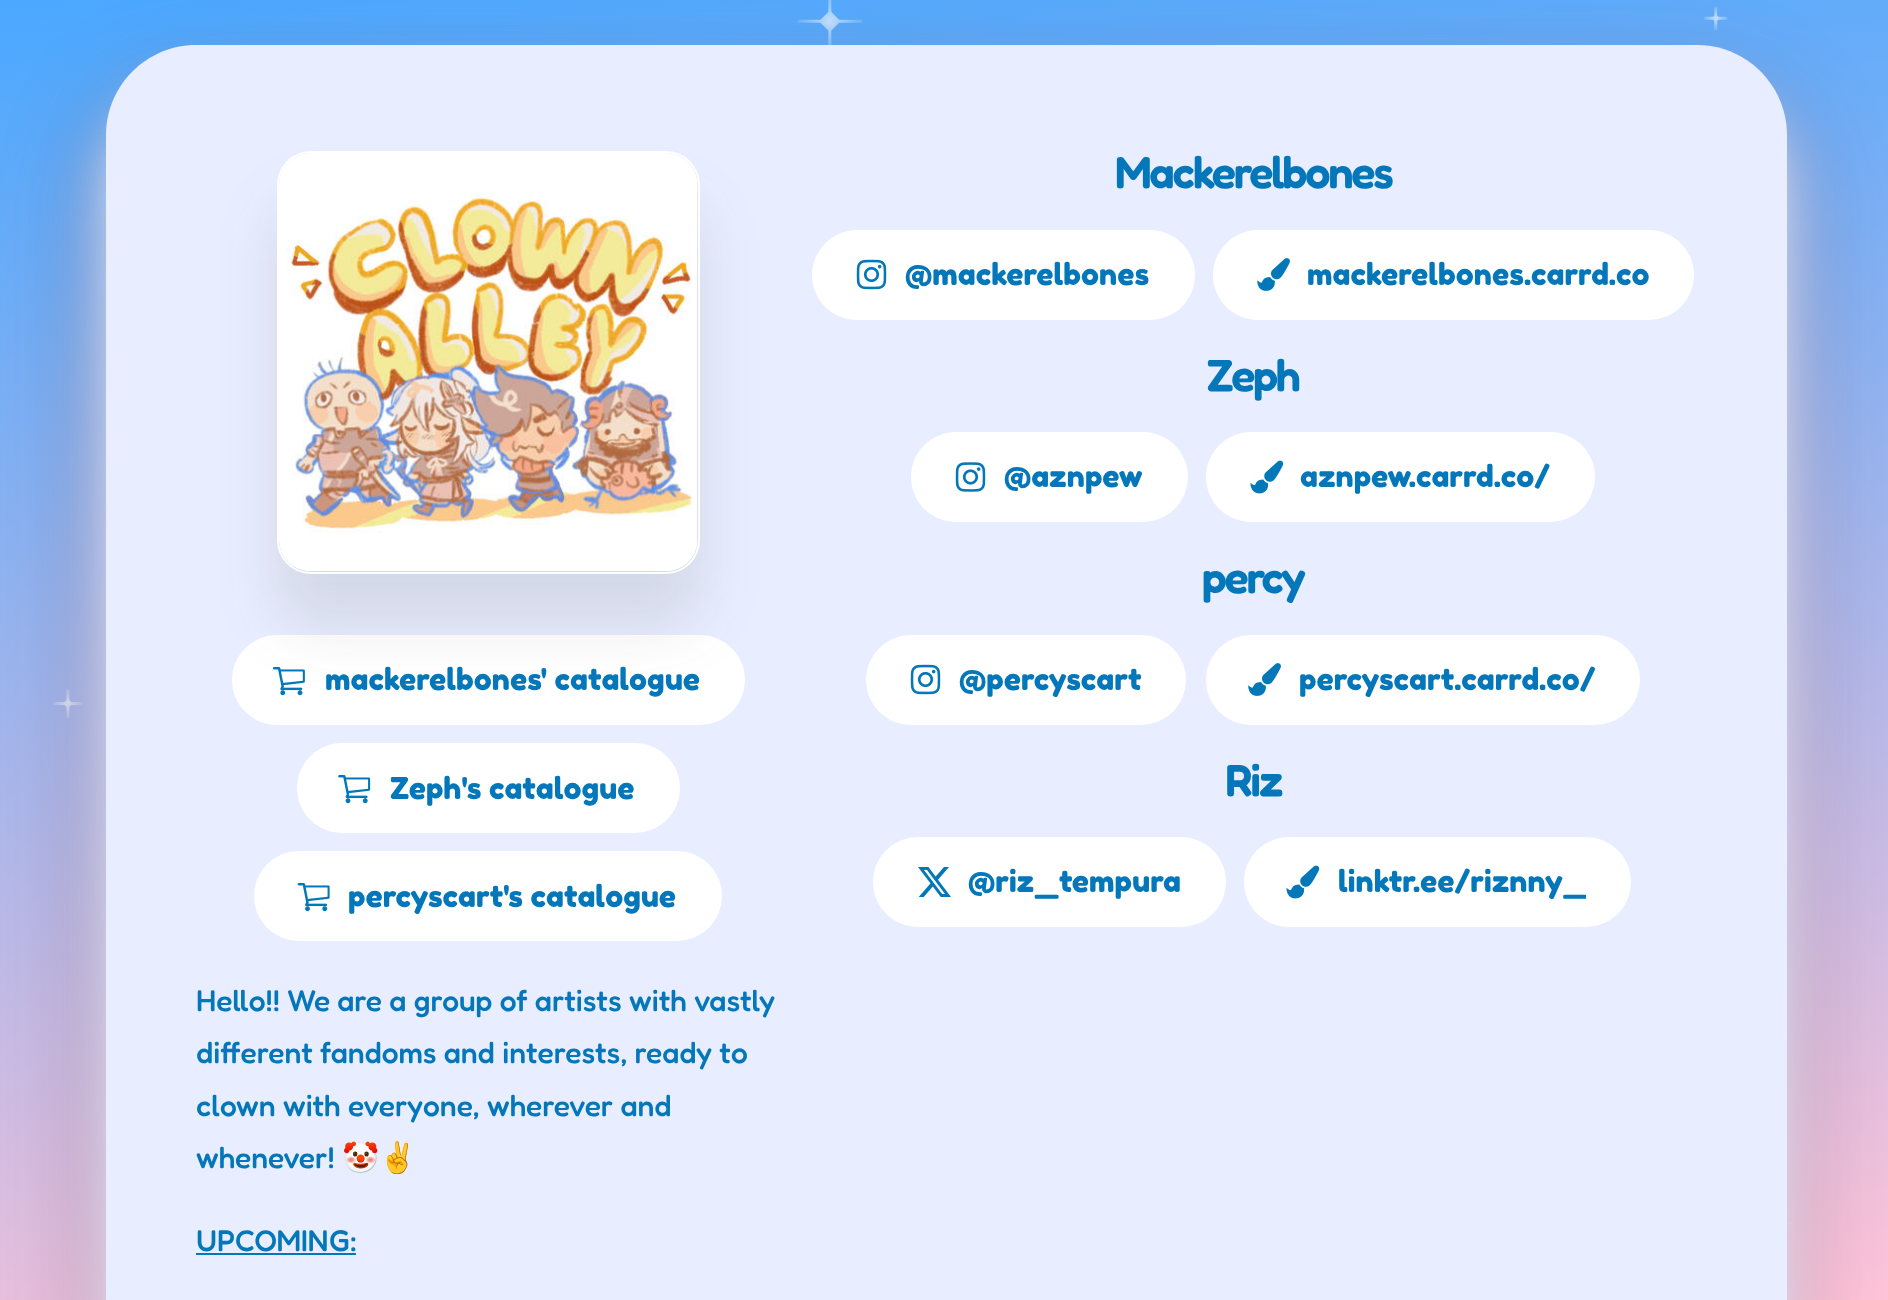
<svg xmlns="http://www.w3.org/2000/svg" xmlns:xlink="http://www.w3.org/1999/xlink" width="1888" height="1300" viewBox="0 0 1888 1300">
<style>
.cls-1{font:600 45px Fredoka;letter-spacing:-2.25px;fill:#0377b9}
.cls-2{font:30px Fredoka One;fill:#0377b9}
.cls-3{font:500 30px Fredoka;fill:#0377b9}
.cls-4{font:30px Noto Color Emoji;fill:#0377b9}
</style>
<defs>
<clipPath id="clip1"><rect x="1339" y="837" width="247" height="90"/></clipPath>
</defs>
<rect width="100%" height="100%" fill="#ffffff"/>
<image xlink:href="image0.png" x="0" y="0" width="1888" height="1300"/>
<rect fill="#612335" fill-opacity="0.39" filter="blur(47px)" x="99" y="90" width="1692" height="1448" rx="97"/>
<rect fill="#e8edff" filter="blur(30px)" x="106" y="97" width="1681" height="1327" rx="90"/>
<path fill="#e8edff" d="M196 45H1697C1746.5 45 1787 85.5 1787 135V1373H106V135C106 85.5 146.5 45 196 45Z"/>
<rect fill="#ffffff" x="812" y="230" width="383" height="90" rx="45"/>
<image xlink:href="image1.png" x="856" y="259" width="31" height="31"/>
<rect fill="#ffffff" x="1213" y="230" width="481" height="90" rx="45"/>
<image xlink:href="image2.png" x="1257" y="258" width="33" height="33"/>
<rect fill="#ffffff" x="911" y="432" width="277" height="90" rx="45"/>
<image xlink:href="image3.png" x="955" y="462" width="31" height="30"/>
<rect fill="#ffffff" x="1206" y="432" width="389" height="90" rx="45"/>
<image xlink:href="image4.png" x="1250" y="460" width="34" height="34"/>
<rect fill="#ffffff" x="866" y="635" width="320" height="90" rx="45"/>
<image xlink:href="image1.png" x="910" y="664" width="31" height="31"/>
<rect fill="#ffffff" x="1206" y="635" width="434" height="90" rx="45"/>
<image xlink:href="image2.png" x="1248" y="663" width="33" height="33"/>
<rect fill="#ffffff" x="873" y="837" width="353" height="90" rx="45"/>
<image xlink:href="image5.png" x="918" y="867" width="33" height="30"/>
<rect fill="#ffffff" x="1244" y="837" width="387" height="90" rx="45"/>
<image xlink:href="image4.png" x="1286" y="865" width="34" height="34"/>
<rect fill="#ffffff" x="232" y="635" width="513" height="90" rx="45"/>
<image xlink:href="image7.png" x="272" y="667" width="33" height="29"/>
<rect fill="#404040" fill-opacity="0.12" filter="blur(30px)" x="277" y="203" width="423" height="423" rx="34"/>
<rect fill="none" stroke="#ffffff" stroke-width="2" x="278" y="152" width="421" height="421" rx="33"/>
<image xlink:href="image6.png" x="279" y="153" width="418" height="418"/>
<rect fill="#ffffff" x="297" y="743" width="383" height="90" rx="45"/>
<image xlink:href="image8.png" x="338" y="775" width="33" height="29"/>
<rect fill="#ffffff" x="254" y="851" width="468" height="90" rx="45"/>
<image xlink:href="image9.png" x="297" y="883" width="33" height="29"/>
<rect fill="#0277b9" x="196" y="1253" width="160" height="2"/>
<text class="cls-1" x="1115" y="188">Mackerelbones</text>
<text class="cls-2" x="905" y="285">@mackerelbones</text>
<text class="cls-2" x="1307" y="285">mackerelbones.carrd.co</text>
<text class="cls-1" x="1207" y="391">Zeph</text>
<text class="cls-2" x="1004" y="487">@aznpew</text>
<text class="cls-2" x="1300" y="487">aznpew.carrd.co/</text>
<text class="cls-1" x="1202" y="593">percy</text>
<text class="cls-2" x="959" y="690">@percyscart</text>
<text class="cls-2" x="1299" y="690">percyscart.carrd.co/</text>
<text class="cls-1" x="1225" y="796">Riz</text>
<text class="cls-2" x="968" y="892">@riz_tempura</text>
<g clip-path="url(#clip1)">
<text class="cls-2" x="1338" y="892">linktr.ee/riznny_</text>
</g>
<text class="cls-2" x="325" y="690">mackerelbones' catalogue</text>
<text class="cls-2" x="390" y="799">Zeph's catalogue</text>
<text class="cls-2" x="348" y="907">percyscart's catalogue</text>
<text class="cls-3"><tspan x="196" y="1011">Hello!! We are a group of artists with vastly</tspan><tspan x="196" y="1063">different fandoms and interests, ready to</tspan><tspan x="196" y="1116">clown with everyone, wherever and</tspan><tspan x="196" y="1168">whenever!</tspan></text>
<text class="cls-4" x="342" y="1168">🤡✌</text>
<text class="cls-3" x="196" y="1251">UPCOMING:</text>
</svg>
